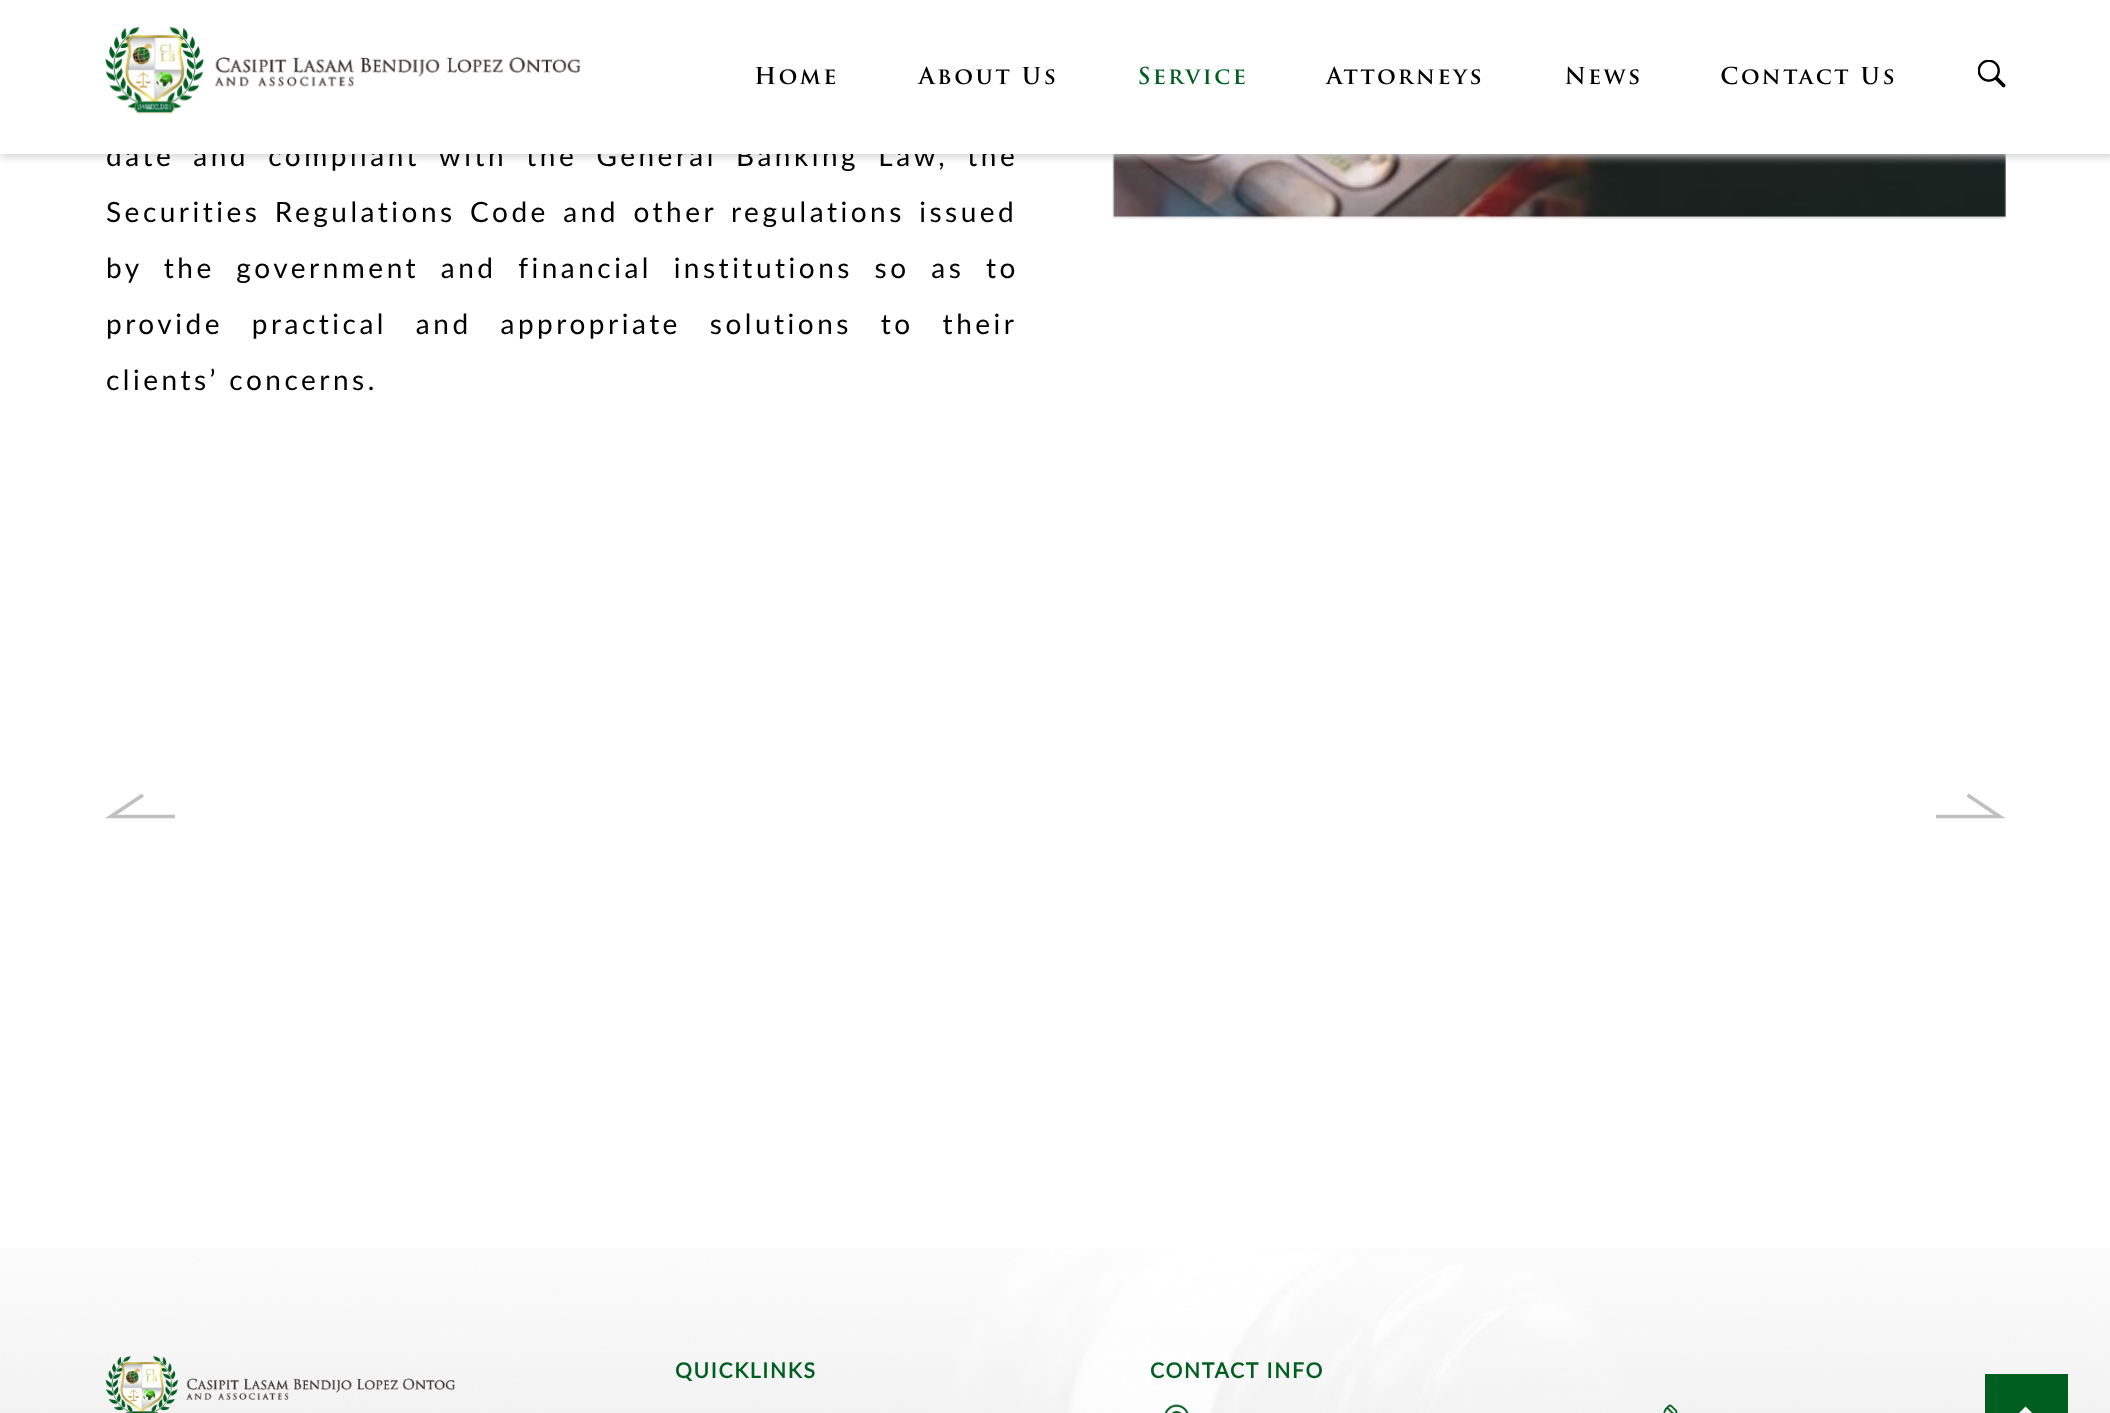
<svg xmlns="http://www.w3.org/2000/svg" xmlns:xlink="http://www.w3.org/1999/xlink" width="2110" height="1413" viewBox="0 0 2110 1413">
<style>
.cls-1{font:28px Lato;letter-spacing:3.5px;fill:#000000}
.cls-2{font:bold 21px Lato;letter-spacing:1.75px;fill:#005e20}
</style>
<defs>
<clipPath id="clip1"><rect x="1936" y="793" width="70" height="26"/></clipPath>
</defs>
<rect width="100%" height="100%" fill="#ffffff"/>
<image xlink:href="image8.png" x="1112" y="154" width="894" height="65"/>
<rect fill="#cccccc" filter="blur(5px)" x="0" y="-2" width="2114" height="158"/>
<path fill="none" stroke="#c0c0c0" stroke-width="3.7" d="M143 795L111 816.5H175"/>
<g clip-path="url(#clip1)">
<path fill="none" stroke="#c0c0c0" stroke-width="3.7" d="M1967.5 795L1999.5 816.5H1935.5"/>
</g>
<image xlink:href="image9.png" x="0" y="1248" width="2110" height="165"/>
<image xlink:href="image10.png" x="105" y="1355" width="350" height="58"/>
<image xlink:href="image11.png" x="1164" y="1404" width="25" height="9"/>
<image xlink:href="image12.png" x="1663" y="1404" width="15" height="9"/>
<rect fill="#005e20" x="1985" y="1374" width="83" height="39"/>
<path fill="#ffffff" d="M2012.5 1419.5L2015.5 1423L2025.5 1412.5L2035.5 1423L2039 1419.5L2025.5 1406.5Z"/>
<text class="cls-1" x="106" y="166" word-spacing="8.5">date and compliant with the General Banking Law, the</text>
<rect fill="#ffffff" x="0" y="0" width="2110" height="154"/>
<image xlink:href="image7.png" x="1978" y="60" width="28" height="28"/>
<image xlink:href="image6.png" x="1721" y="66" width="173" height="19"/>
<image xlink:href="image5.png" x="1565" y="66" width="74" height="19"/>
<image xlink:href="image4.png" x="1325" y="66" width="156" height="19"/>
<image xlink:href="image3.png" x="1139" y="66" width="106" height="19"/>
<image xlink:href="image2.png" x="917" y="66" width="138" height="19"/>
<image xlink:href="image1.png" x="755" y="67" width="81" height="18"/>
<image xlink:href="image0.png" x="105" y="26" width="476" height="88"/>
<text class="cls-1" x="106" y="222" word-spacing="3.75">Securities Regulations Code and other regulations issued</text>
<text class="cls-1" x="106" y="278" word-spacing="11">by the government and financial institutions so as to</text>
<text class="cls-1" x="106" y="334" word-spacing="18.25">provide practical and appropriate solutions to their</text>
<text class="cls-1" x="106" y="390">clients’ concerns.</text>
<text class="cls-2" x="675" y="1378">QUICKLINKS</text>
<text class="cls-2" x="1150" y="1378">CONTACT INFO</text>
</svg>
